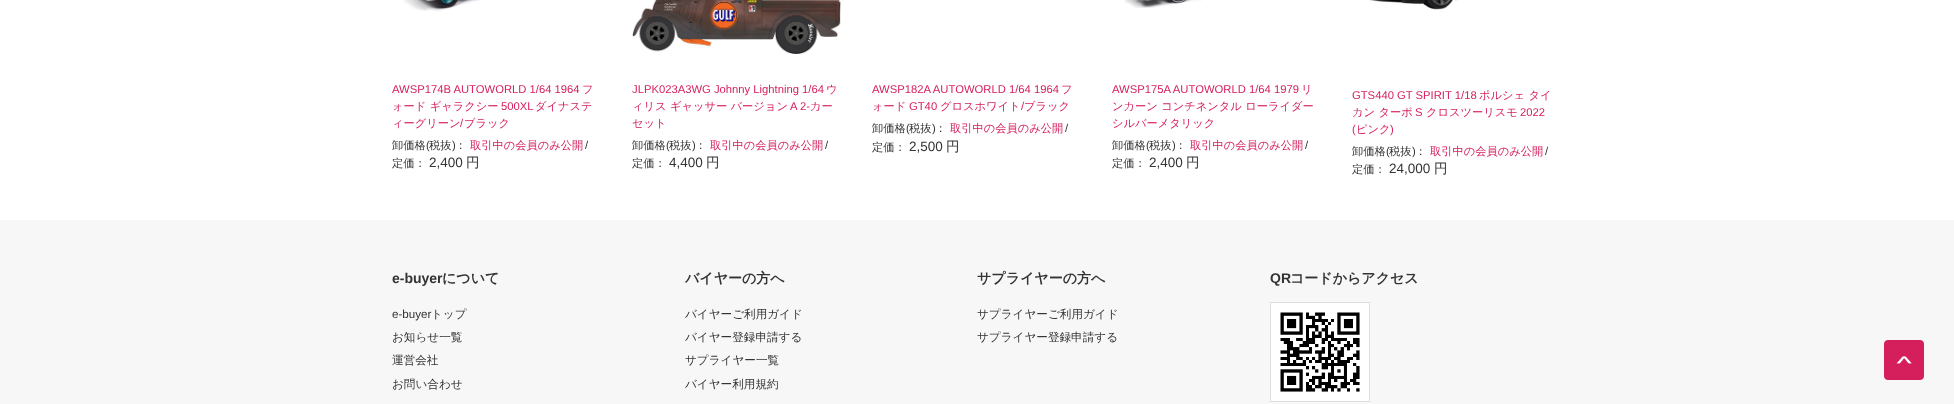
<svg xmlns="http://www.w3.org/2000/svg" xmlns:xlink="http://www.w3.org/1999/xlink" width="1954" height="404" viewBox="0 0 1954 404">
<style>
.cls-1{font:11.25px Liberation Sans;fill:#d51f5c}
.cls-2{font:500 11.25px WenQuanYi Zen Hei;fill:#d51f5c}
.cls-3{font:500 11.25px WenQuanYi Zen Hei;fill:#333333}
.cls-4{font:11.25px Liberation Sans;fill:#333333}
.cls-5{font:13.5px Liberation Sans;fill:#333333}
.cls-6{font:500 13.5px WenQuanYi Zen Hei;fill:#333333}
.cls-7{font:bold 14px Liberation Sans;fill:#333333}
.cls-8{font:bold 14px WenQuanYi Zen Hei;fill:#333333}
.cls-9{font:11.6px Liberation Sans;fill:#333333}
.cls-10{font:500 11.6px WenQuanYi Zen Hei;fill:#333333}
</style>
<rect width="100%" height="100%" fill="#ffffff"/>
<image xlink:href="image0.png" x="403" y="0" width="78" height="11"/>
<image xlink:href="image1.png" x="632" y="0" width="210" height="54"/>
<image xlink:href="image2.png" x="1124" y="0" width="79" height="8"/>
<image xlink:href="image3.png" x="1369" y="0" width="90" height="10"/>
<rect fill="#f7f7f7" x="0" y="220" width="1954" height="184"/>
<rect fill="none" stroke="#dedede" x="1270.5" y="302.5" width="99" height="99"/>
<image xlink:href="image4.png" x="1271" y="303" width="98" height="98"/>
<image xlink:href="image5.png" x="1884" y="340" width="40" height="40"/>
<text class="cls-1" x="392" y="93">AWSP174B AUTOWORLD 1/64 1964</text>
<text class="cls-2" x="582" y="93">フ</text>
<text class="cls-2" x="392" y="110">ォード ギャラクシー</text>
<text class="cls-1" x="501" y="110">500XL</text>
<text class="cls-2" x="535" y="110">ダイナステ</text>
<text class="cls-2" x="392" y="127">ィーグリーン ブラック</text>
<text class="cls-1" x="460" y="127">/</text>
<text class="cls-3" x="392" y="149">卸価格</text>
<text class="cls-4" x="426" y="149">(</text>
<text class="cls-3" x="429" y="149">税抜</text>
<text class="cls-4" x="452" y="149">)</text>
<text class="cls-3" x="455" y="149">：</text>
<text class="cls-2" x="470" y="149">取引中の会員のみ公開</text>
<text class="cls-4" x="585" y="149">/</text>
<text class="cls-3" x="392" y="167">定価：</text>
<text class="cls-5" x="429" y="167">2,400</text>
<text class="cls-6" x="466" y="167">円</text>
<text class="cls-1" x="632" y="93">JLPK023A3WG Johnny Lightning 1/64</text>
<text class="cls-2" x="826" y="93">ウ</text>
<text class="cls-2" x="632" y="110">ィリス ギャッサー バージョン</text>
<text class="cls-1" x="790" y="110">A 2-</text>
<text class="cls-2" x="810" y="110">カー</text>
<text class="cls-2" x="632" y="127">セット</text>
<text class="cls-3" x="632" y="149">卸価格</text>
<text class="cls-4" x="666" y="149">(</text>
<text class="cls-3" x="669" y="149">税抜</text>
<text class="cls-4" x="692" y="149">)</text>
<text class="cls-3" x="695" y="149">：</text>
<text class="cls-2" x="710" y="149">取引中の会員のみ公開</text>
<text class="cls-4" x="825" y="149">/</text>
<text class="cls-3" x="632" y="167">定価：</text>
<text class="cls-5" x="669" y="167">4,400</text>
<text class="cls-6" x="706" y="167">円</text>
<text class="cls-1" x="872" y="93">AWSP182A AUTOWORLD 1/64 1964</text>
<text class="cls-2" x="1061" y="93">フ</text>
<text class="cls-2" x="872" y="110">ォード</text>
<text class="cls-2" x="940" y="110">グロスホワイト ブラック</text>
<text class="cls-1" x="909" y="110">GT40</text>
<text class="cls-1" x="1021" y="110">/</text>
<text class="cls-3" x="872" y="132">卸価格</text>
<text class="cls-4" x="906" y="132">(</text>
<text class="cls-3" x="909" y="132">税抜</text>
<text class="cls-4" x="932" y="132">)</text>
<text class="cls-3" x="935" y="132">：</text>
<text class="cls-2" x="950" y="132">取引中の会員のみ公開</text>
<text class="cls-4" x="1065" y="132">/</text>
<text class="cls-3" x="872" y="151">定価：</text>
<text class="cls-5" x="909" y="151">2,500</text>
<text class="cls-6" x="946" y="151">円</text>
<text class="cls-1" x="1112" y="93">AWSP175A AUTOWORLD 1/64 1979</text>
<text class="cls-2" x="1301" y="93">リ</text>
<text class="cls-2"><tspan x="1112" y="110">ンカーン コンチネンタル ローライダー</tspan><tspan x="1112" y="127">シルバーメタリック</tspan></text>
<text class="cls-3" x="1112" y="149">卸価格</text>
<text class="cls-4" x="1146" y="149">(</text>
<text class="cls-3" x="1149" y="149">税抜</text>
<text class="cls-4" x="1172" y="149">)</text>
<text class="cls-3" x="1175" y="149">：</text>
<text class="cls-2" x="1190" y="149">取引中の会員のみ公開</text>
<text class="cls-4" x="1305" y="149">/</text>
<text class="cls-3" x="1112" y="167">定価：</text>
<text class="cls-5" x="1149" y="167">2,400</text>
<text class="cls-6" x="1186" y="167">円</text>
<text class="cls-1" x="1352" y="99">GTS440 GT SPIRIT 1/18</text>
<text class="cls-2" x="1479" y="99">ポルシェ タイ</text>
<text class="cls-2" x="1352" y="116">カン ターボ</text>
<text class="cls-1" x="1415" y="116">S</text>
<text class="cls-2" x="1426" y="116">クロスツーリスモ</text>
<text class="cls-1" x="1520" y="116">2022</text>
<text class="cls-1" x="1352" y="133">(</text>
<text class="cls-2" x="1356" y="133">ピンク</text>
<text class="cls-1" x="1390" y="133">)</text>
<text class="cls-3" x="1352" y="155">卸価格</text>
<text class="cls-4" x="1386" y="155">(</text>
<text class="cls-3" x="1389" y="155">税抜</text>
<text class="cls-4" x="1412" y="155">)</text>
<text class="cls-3" x="1415" y="155">：</text>
<text class="cls-2" x="1430" y="155">取引中の会員のみ公開</text>
<text class="cls-4" x="1545" y="155">/</text>
<text class="cls-3" x="1352" y="173">定価：</text>
<text class="cls-5" x="1389" y="173">24,000</text>
<text class="cls-6" x="1434" y="173">円</text>
<text class="cls-7" x="392" y="283">e-buyer</text>
<text class="cls-8" x="442" y="283">について</text>
<text class="cls-9" x="392" y="318">e-buyer</text>
<text class="cls-10" x="431" y="318">トップ</text>
<text class="cls-10"><tspan x="392" y="341">お知らせ一覧</tspan><tspan x="392" y="364">運営会社</tspan></text>
<text class="cls-10" x="392" y="388">お問い合わせ</text>
<text class="cls-8" x="685" y="283">バイヤーの方へ</text>
<text class="cls-10"><tspan x="685" y="318">バイヤーご利用ガイド</tspan><tspan x="685" y="341">バイヤー登録申請する</tspan><tspan x="685" y="364">サプライヤー一覧</tspan></text>
<text class="cls-10" x="685" y="388">バイヤー利用規約</text>
<text class="cls-8" x="977" y="283">サプライヤーの方へ</text>
<text class="cls-10"><tspan x="977" y="318">サプライヤーご利用ガイド</tspan><tspan x="977" y="341">サプライヤー登録申請する</tspan></text>
<text class="cls-7" x="1270" y="283">QR</text>
<text class="cls-8" x="1290" y="283">コードからアクセス</text>
</svg>
